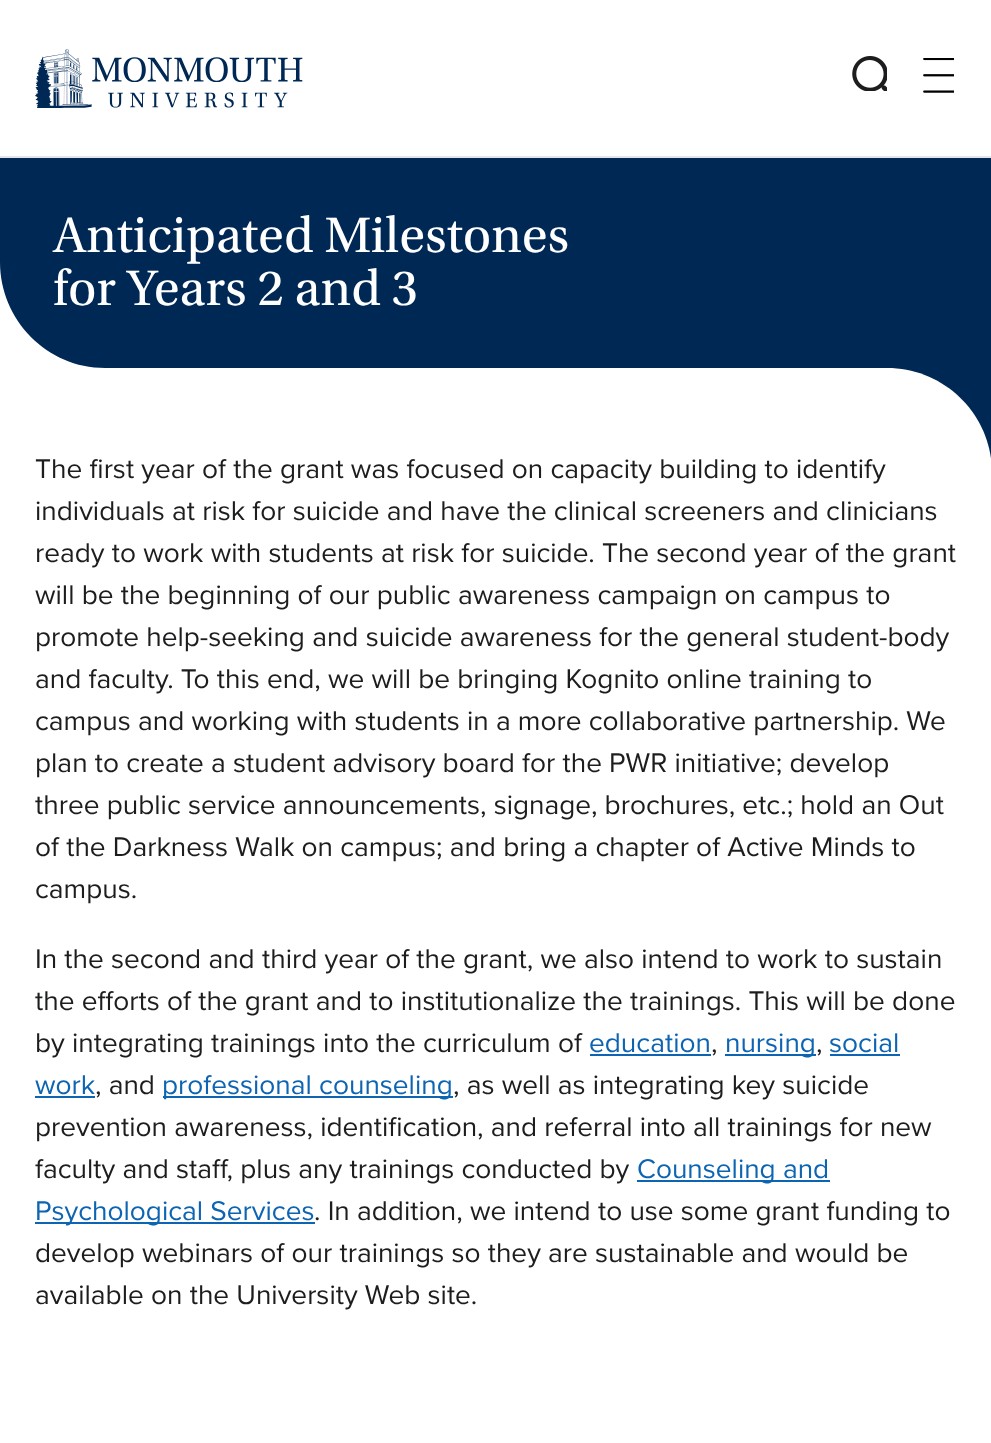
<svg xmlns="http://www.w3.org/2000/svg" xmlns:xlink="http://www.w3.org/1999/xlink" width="991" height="1443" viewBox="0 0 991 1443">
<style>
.cls-1{font:52.5px Utopia;fill:#ffffff}
.cls-2{font:28px Proxima Nova;fill:#1c1d1f}
.cls-3{font:28px Proxima Nova;fill:#0d64b2}
</style>
<rect width="100%" height="100%" fill="#ffffff"/>
<rect fill="#e5e5e5" x="0" y="156" width="991" height="2"/>
<image xlink:href="image0.png" x="35" y="49" width="268" height="59"/>
<image xlink:href="image1.png" x="852" y="56" width="35" height="35"/>
<image xlink:href="image2.png" x="923" y="58" width="31" height="35"/>
<rect fill="#002855" x="0" y="158" width="991" height="301"/>
<path fill="#ffffff" d="M105 368H0V262H105ZM105 262H0C0 320 47 368 105 368Z"/>
<path fill="#ffffff" d="M0 368H887C945 368 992 415 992 473H0Z"/>
<rect fill="#0d64b2" x="590" y="1054" width="121" height="2"/>
<rect fill="#0d64b2" x="725" y="1054" width="91" height="2"/>
<rect fill="#0d64b2" x="830" y="1054" width="70" height="2"/>
<rect fill="#0d64b2" x="35" y="1096" width="60" height="2"/>
<rect fill="#0d64b2" x="163" y="1096" width="290" height="2"/>
<rect fill="#0d64b2" x="637" y="1180" width="193" height="2"/>
<rect fill="#0d64b2" x="35" y="1222" width="280" height="2"/>
<text class="cls-1"><tspan x="53" y="252">Anticipated Milestones</tspan><tspan x="53" y="305">for Years 2 and 3</tspan></text>
<text class="cls-2"><tspan x="35" y="478">The first year of the grant was focused on capacity building to identify</tspan><tspan x="35" y="520">individuals at risk for suicide and have the clinical screeners and clinicians</tspan><tspan x="35" y="562">ready to work with students at risk for suicide. The second year of the grant</tspan><tspan x="35" y="604">will be the beginning of our public awareness campaign on campus to</tspan><tspan x="35" y="646">promote help-seeking and suicide awareness for the general student-body</tspan><tspan x="35" y="688">and faculty. To this end, we will be bringing Kognito online training to</tspan><tspan x="35" y="730">campus and working with students in a more collaborative partnership. We</tspan><tspan x="35" y="772">plan to create a student advisory board for the PWR initiative; develop</tspan><tspan x="35" y="814">three public service announcements, signage, brochures, etc.; hold an Out</tspan><tspan x="35" y="856">of the Darkness Walk on campus; and bring a chapter of Active Minds to</tspan><tspan x="35" y="898">campus.</tspan></text>
<text class="cls-2"><tspan x="35" y="968">In the second and third year of the grant, we also intend to work to sustain</tspan><tspan x="35" y="1010">the efforts of the grant and to institutionalize the trainings. This will be done</tspan><tspan x="35" y="1052">by integrating trainings into the curriculum of</tspan></text>
<text class="cls-3" x="589" y="1052">education</text>
<text class="cls-2" x="711" y="1052">,</text>
<text class="cls-3" x="725" y="1052">nursing</text>
<text class="cls-2" x="816" y="1052">,</text>
<text class="cls-3" x="829" y="1052">social</text>
<text class="cls-3" x="35" y="1094">work</text>
<text class="cls-2" x="95" y="1094">, and</text>
<text class="cls-3" x="162" y="1094">professional counseling</text>
<text class="cls-2" x="453" y="1094">, as well as integrating key suicide</text>
<text class="cls-2"><tspan x="35" y="1136">prevention awareness, identification, and referral into all trainings for new</tspan><tspan x="35" y="1178">faculty and staff, plus any trainings conducted by</tspan></text>
<text class="cls-3" x="637" y="1178">Counseling and</text>
<text class="cls-3" x="35" y="1220">Psychological Services</text>
<text class="cls-2" x="314" y="1220">. In addition, we intend to use some grant funding to</text>
<text class="cls-2"><tspan x="35" y="1262">develop webinars of our trainings so they are sustainable and would be</tspan><tspan x="35" y="1304">available on the University Web site.</tspan></text>
</svg>
